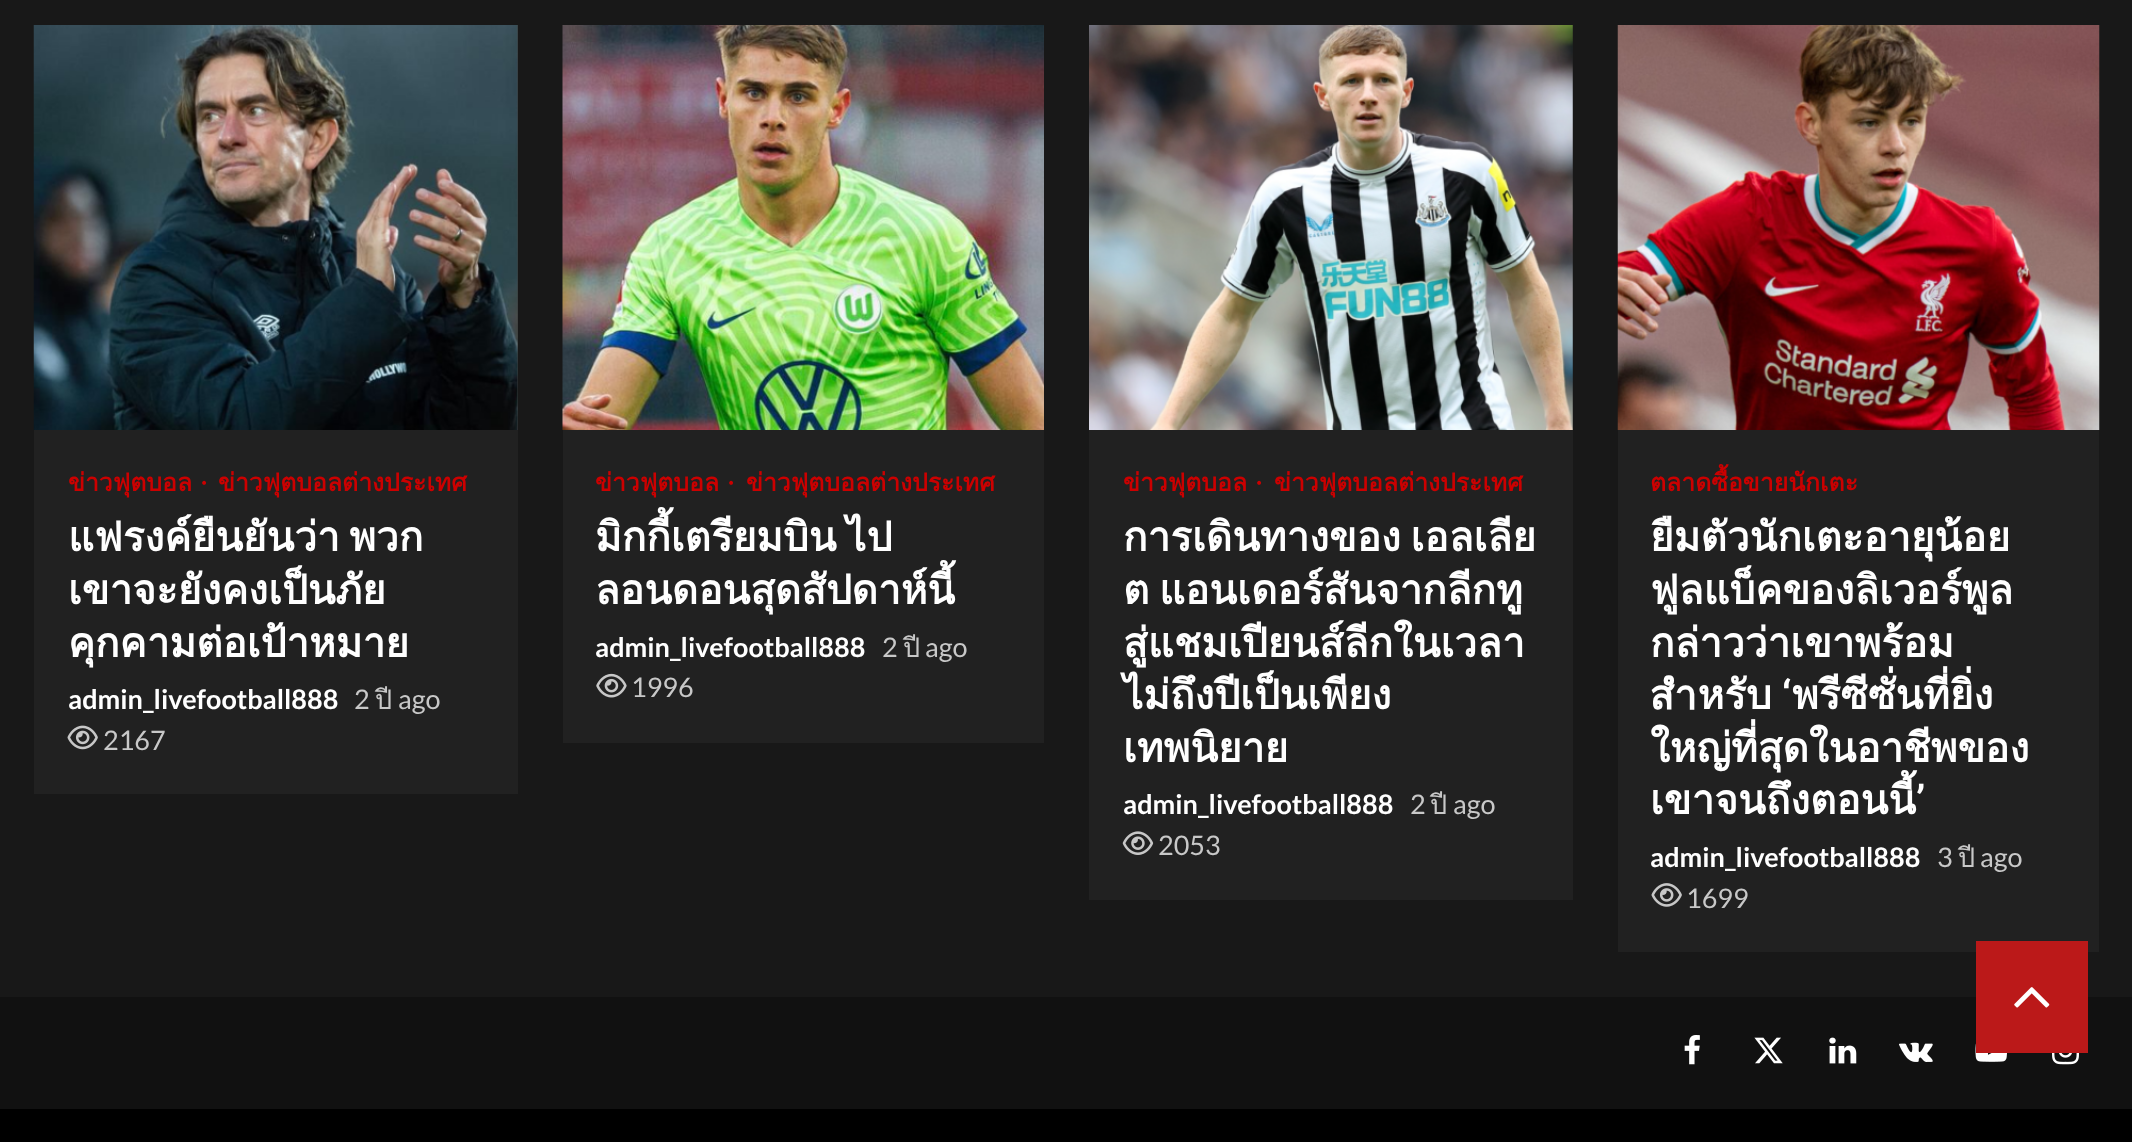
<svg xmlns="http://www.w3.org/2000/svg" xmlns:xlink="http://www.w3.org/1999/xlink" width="2132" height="1142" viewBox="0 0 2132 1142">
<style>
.cls-1{font:bold 24.75px Loma;fill:#cc0000}
.cls-2{font:bold 24.75px Liberation Serif;fill:#cc0000}
.cls-3{font:bold 40.5px Loma;fill:#ffffff}
.cls-4{font:bold 27px Lato;fill:#ffffff}
.cls-5{font:27px Lato;fill:#c8c8c8}
.cls-6{font:27px Loma;fill:#c8c8c8}
.cls-7{font:bold 40.5px Roboto;fill:#ffffff}
</style>
<rect width="100%" height="100%" fill="#181818"/>
<rect fill="#212121" x="34" y="430" width="484" height="364"/>
<rect fill="#3c3c3c" x="517" y="25" width="1" height="405"/>
<image xlink:href="image0.png" x="33" y="25" width="485" height="405"/>
<image xlink:href="image1.png" x="67" y="725" width="31" height="25"/>
<rect fill="#212121" x="563" y="430" width="481" height="313"/>
<image xlink:href="image2.png" x="562" y="25" width="482" height="405"/>
<image xlink:href="image3.png" x="596" y="673" width="31" height="25"/>
<rect fill="#212121" x="1089" y="25" width="484" height="875"/>
<image xlink:href="image4.png" x="1089" y="25" width="484" height="405"/>
<image xlink:href="image5.png" x="1122" y="831" width="32" height="24"/>
<rect fill="#212121" x="1618" y="430" width="481" height="522"/>
<image xlink:href="image6.png" x="1617" y="25" width="483" height="405"/>
<image xlink:href="image7.png" x="1651" y="883" width="31" height="24"/>
<rect fill="#111111" x="0" y="997" width="2132" height="112"/>
<image xlink:href="image8.png" x="1684" y="1035" width="16" height="30"/>
<image xlink:href="image9.png" x="1754" y="1037" width="29" height="27"/>
<image xlink:href="image10.png" x="1829" y="1037" width="28" height="27"/>
<image xlink:href="image11.png" x="1899" y="1042" width="34" height="20"/>
<image xlink:href="image12.png" x="1975" y="1043" width="32" height="19"/>
<image xlink:href="image13.png" x="2052" y="1053" width="27" height="12"/>
<rect fill="#000000" x="0" y="1109" width="2132" height="33"/>
<rect fill="#bb1919" x="1976" y="941" width="112" height="112"/>
<image xlink:href="image14.png" x="2014" y="987" width="36" height="21"/>
<text class="cls-1" x="68" y="491">ข่าวฟุตบอล</text>
<text class="cls-2" x="201" y="491">∙</text>
<text class="cls-1" x="218" y="491">ข่าวฟุตบอลต่างประเทศ</text>
<text class="cls-3"><tspan x="68" y="551" word-spacing="-4">แฟรงค์ยืนยันว่า พวก</tspan><tspan x="68" y="604">เขาจะยังคงเป็นภัย</tspan><tspan x="68" y="657">คุกคามต่อเป้าหมาย</tspan></text>
<text class="cls-4" x="68" y="709">admin_livefootball888</text>
<text class="cls-5" x="354" y="709">2</text>
<text class="cls-6" x="375" y="709">ปี</text>
<text class="cls-5" x="398" y="709">ago</text>
<text class="cls-5" x="103" y="750">2167</text>
<text class="cls-1" x="595" y="491">ข่าวฟุตบอล</text>
<text class="cls-2" x="728" y="491">∙</text>
<text class="cls-1" x="746" y="491">ข่าวฟุตบอลต่างประเทศ</text>
<text class="cls-3"><tspan x="595" y="551" word-spacing="-4">มิกกี้เตรียมบิน ไป</tspan><tspan x="595" y="604">ลอนดอนสุดสัปดาห์นี้</tspan></text>
<text class="cls-4" x="595" y="657">admin_livefootball888</text>
<text class="cls-5" x="882" y="657">2</text>
<text class="cls-6" x="903" y="657">ปี</text>
<text class="cls-5" x="925" y="657">ago</text>
<text class="cls-5" x="631" y="697">1996</text>
<text class="cls-1" x="1123" y="491">ข่าวฟุตบอล</text>
<text class="cls-2" x="1256" y="491">∙</text>
<text class="cls-1" x="1274" y="491">ข่าวฟุตบอลต่างประเทศ</text>
<text class="cls-3"><tspan x="1123" y="551" word-spacing="-4">การเดินทางของ เอลเลีย</tspan><tspan x="1123" y="604" word-spacing="-4">ต แอนเดอร์สันจากลีกทู</tspan><tspan x="1123" y="657">สู่แชมเปียนส์ลีกในเวลา</tspan><tspan x="1123" y="709">ไม่ถึงปีเป็นเพียง</tspan><tspan x="1123" y="762">เทพนิยาย</tspan></text>
<text class="cls-4" x="1123" y="814">admin_livefootball888</text>
<text class="cls-5" x="1410" y="814">2</text>
<text class="cls-6" x="1430" y="814">ปี</text>
<text class="cls-5" x="1453" y="814">ago</text>
<text class="cls-5" x="1158" y="855">2053</text>
<text class="cls-1" x="1650" y="491">ตลาดซื้อขายนักเตะ</text>
<text class="cls-3"><tspan x="1650" y="551">ยืมตัวนักเตะอายุน้อย</tspan><tspan x="1650" y="604">ฟูลแบ็คของลิเวอร์พูล</tspan><tspan x="1650" y="657">กล่าวว่าเขาพร้อม</tspan><tspan x="1650" y="709">สำหรับ</tspan></text>
<text class="cls-7" x="1782" y="709">‘</text>
<text class="cls-3" x="1792" y="709">พรีซีซั่นที่ยิ่ง</text>
<text class="cls-3"><tspan x="1650" y="762">ใหญ่ที่สุดในอาชีพของ</tspan><tspan x="1650" y="814">เขาจนถึงตอนนี้</tspan></text>
<text class="cls-7" x="1916" y="814">’</text>
<text class="cls-4" x="1650" y="867">admin_livefootball888</text>
<text class="cls-5" x="1937" y="867">3</text>
<text class="cls-6" x="1958" y="867">ปี</text>
<text class="cls-5" x="1980" y="867">ago</text>
<text class="cls-5" x="1686" y="908">1699</text>
</svg>
